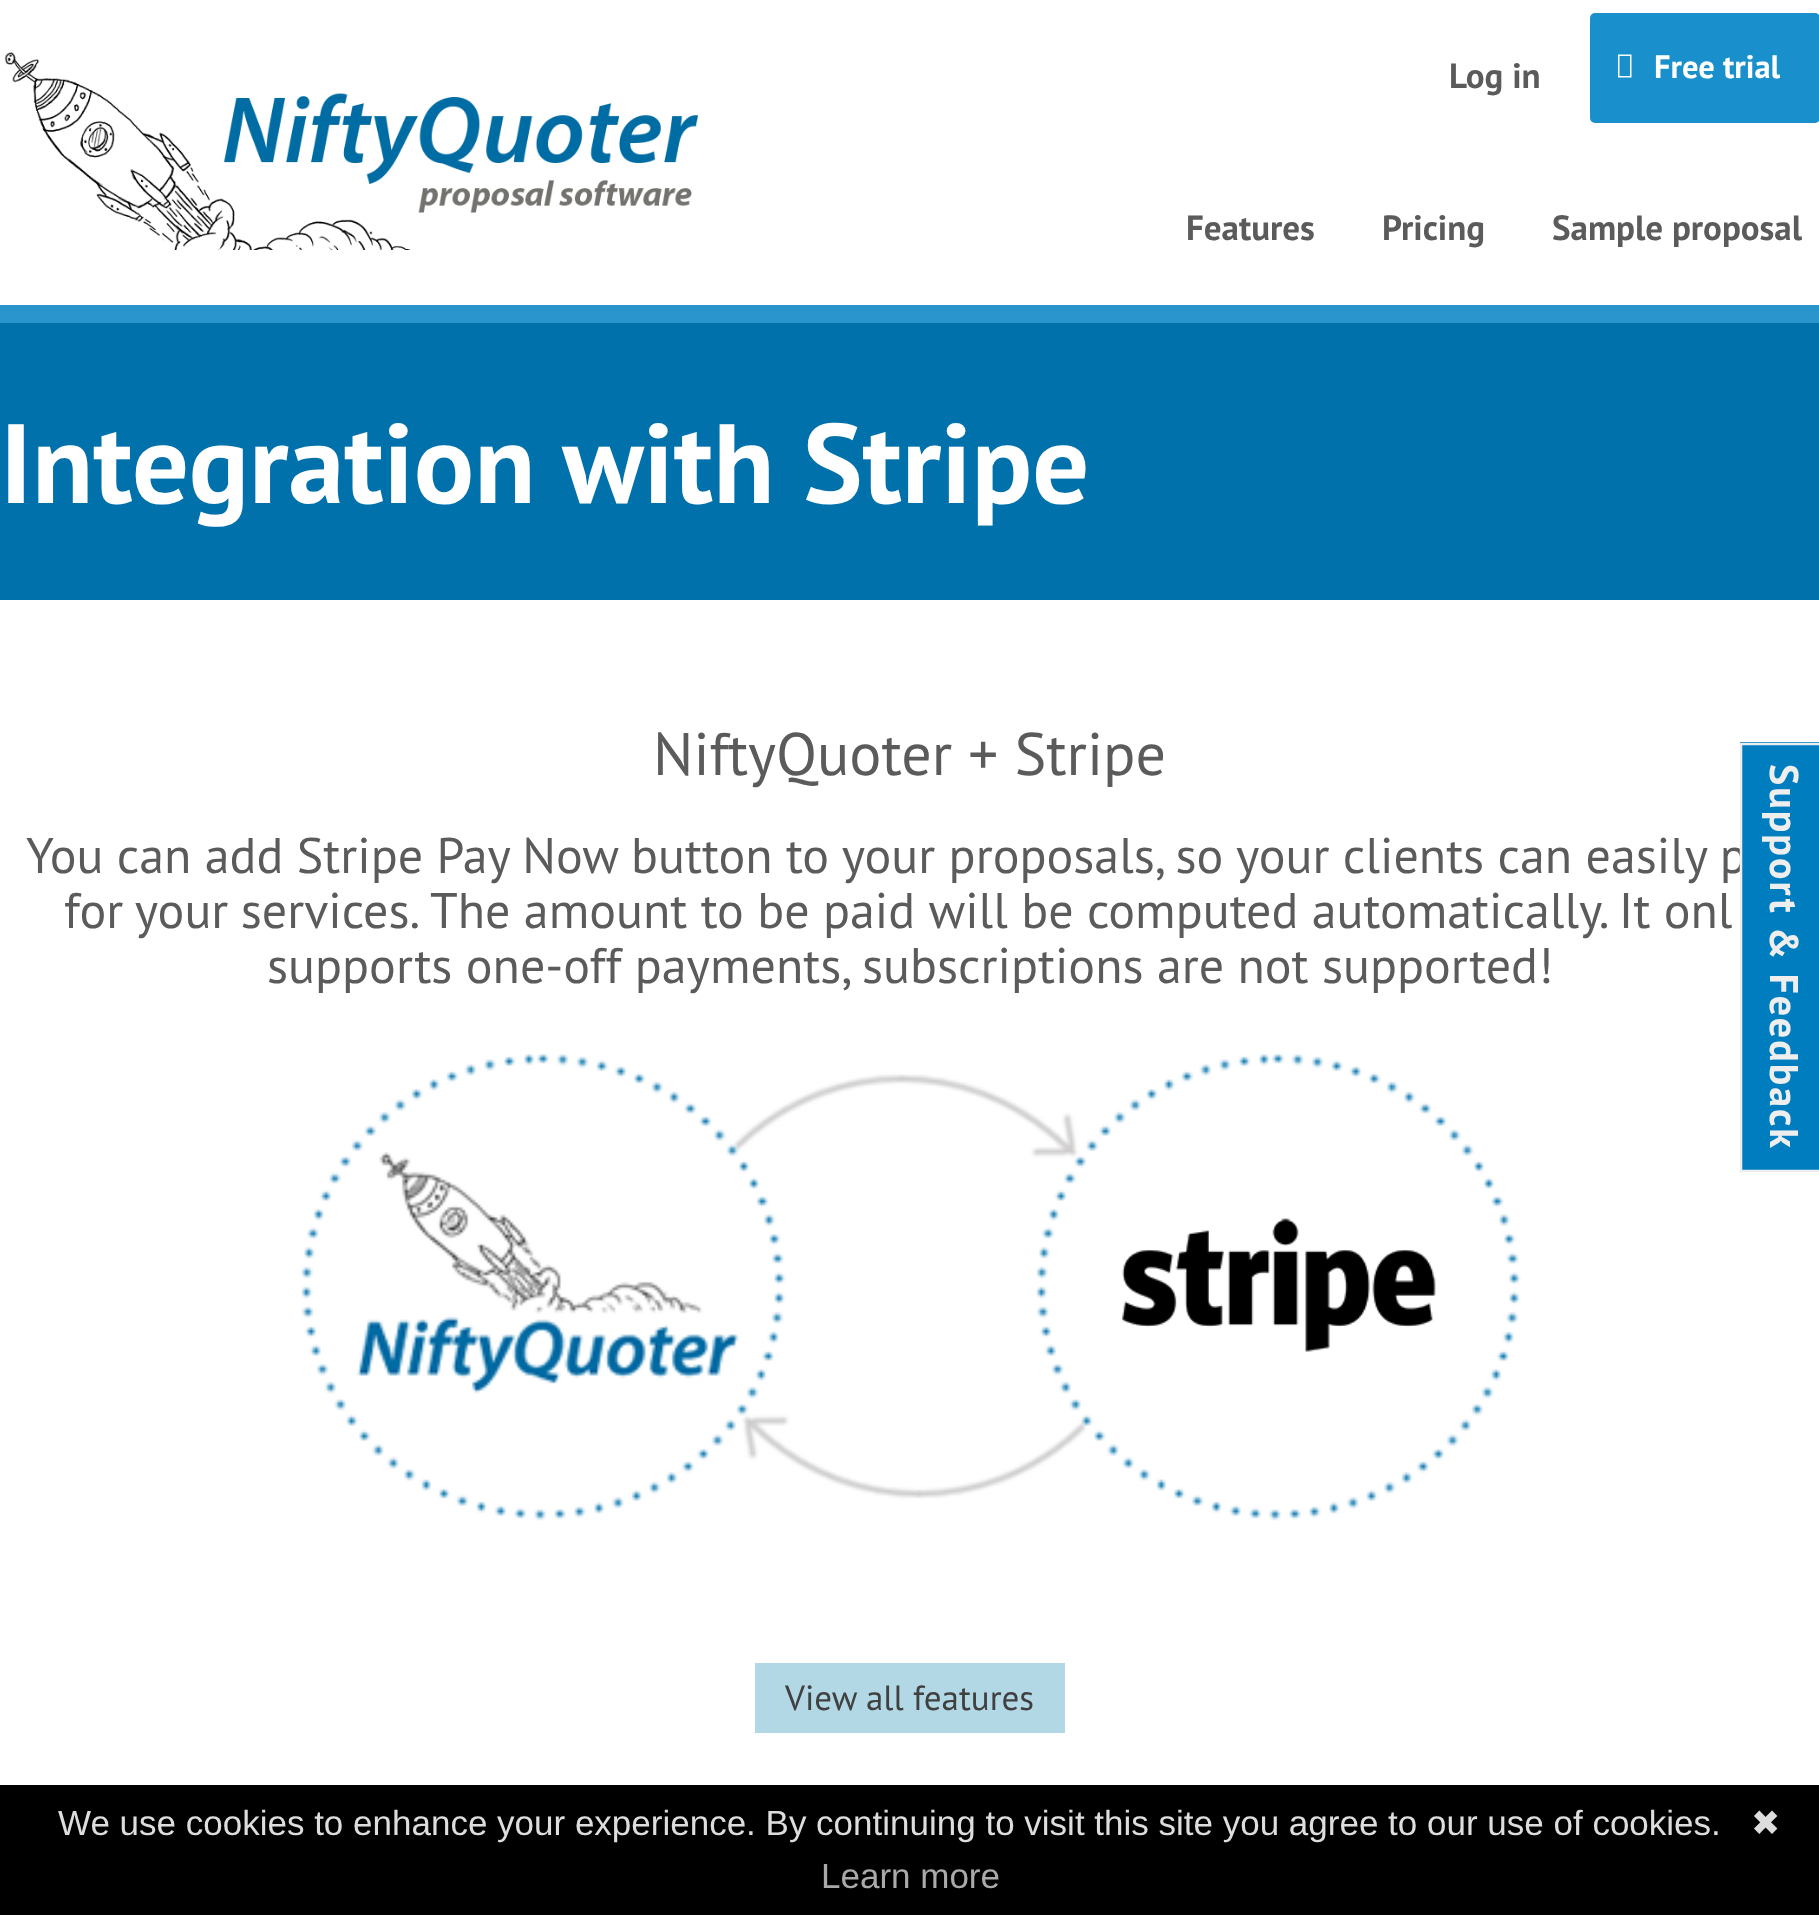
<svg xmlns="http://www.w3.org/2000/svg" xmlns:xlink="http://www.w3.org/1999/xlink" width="1819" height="1915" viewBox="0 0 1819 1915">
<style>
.cls-1{font:bold 35px PT Sans;fill:#5c5b5b}
.cls-2{font:bold 32.5px PT Sans;fill:#ffffff}
.cls-3{font:bold 112.5px PT Sans;fill:#ffffff}
.cls-4{font:60px PT Sans;fill:#5c5b5b}
.cls-5{font:50px PT Sans;fill:#5c5b5b}
.cls-6{font:35px PT Sans;fill:#404040}
.cls-7{font:bold 40px PT Sans;letter-spacing:2px;fill:#eeeeee}
.cls-8{font:35px Liberation Sans;fill:#dddddd}
.cls-9{font:35px DejaVu Sans;fill:#dddddd}
.cls-10{font:35px Liberation Sans;fill:#aaaaaa}
</style>
<rect width="100%" height="100%" fill="#ffffff"/>
<image xlink:href="image0.png" x="4" y="52" width="694" height="198"/>
<rect fill="#198fcb" x="1590" y="13" width="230" height="110" rx="5"/>
<path fill="#ffffff" d="M1618 77.5V54.5H1631.5V77.5ZM1619.5 76H1630V56H1619.5Z"/>
<rect fill="#0171ab" x="0" y="323" width="1819" height="277"/>
<rect fill="#2995cc" x="0" y="305" width="1819" height="18"/>
<image xlink:href="image1.png" x="301" y="1053" width="1220" height="468"/>
<image xlink:href="image2.png" x="1122" y="1218" width="314" height="134"/>
<rect fill="#b2d7e5" x="755" y="1663" width="310" height="70"/>
<rect fill="#000000" x="0" y="1785" width="1819" height="130"/>
<text class="cls-1" x="1449" y="88">Log in</text>
<text class="cls-2" x="1654" y="78">Free trial</text>
<text class="cls-1" x="1186" y="240">Features</text>
<text class="cls-1" x="1382" y="240">Pricing</text>
<text class="cls-1" x="1552" y="240">Sample proposal</text>
<text class="cls-3" x="0" y="503">Integration with Stripe</text>
<text class="cls-4" x="653" y="775">NiftyQuoter + Stripe</text>
<text class="cls-5" x="26" y="873">You can add Stripe Pay Now button to your proposals, so your clients can easily p</text>
<text class="cls-5" x="64" y="928" word-spacing="-1">for your services.</text>
<text class="cls-5" x="430" y="928">The amount to be paid will be computed automatically. It onl</text>
<text class="cls-5" x="267" y="983">supports one-off payments, subscriptions are not supported!</text>
<text class="cls-6" x="785" y="1710">View all features</text>
<rect fill="#007dbf" x="1740" y="742" width="79" height="428"/>
<path fill="none" stroke="#eeeeee" stroke-width="2.5" d="M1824 744V1171H1741V744Z"/>
<text class="cls-7" x="1770" y="764" transform="rotate(90 1770 764)">Support &amp; Feedback</text>
<text class="cls-8" x="58" y="1835">We use cookies to enhance your experience. By continuing to visit this site you agree to our use of cookies.</text>
<text class="cls-9" x="1751" y="1835">✖</text>
<text class="cls-10" x="821" y="1888">Learn more</text>
</svg>
